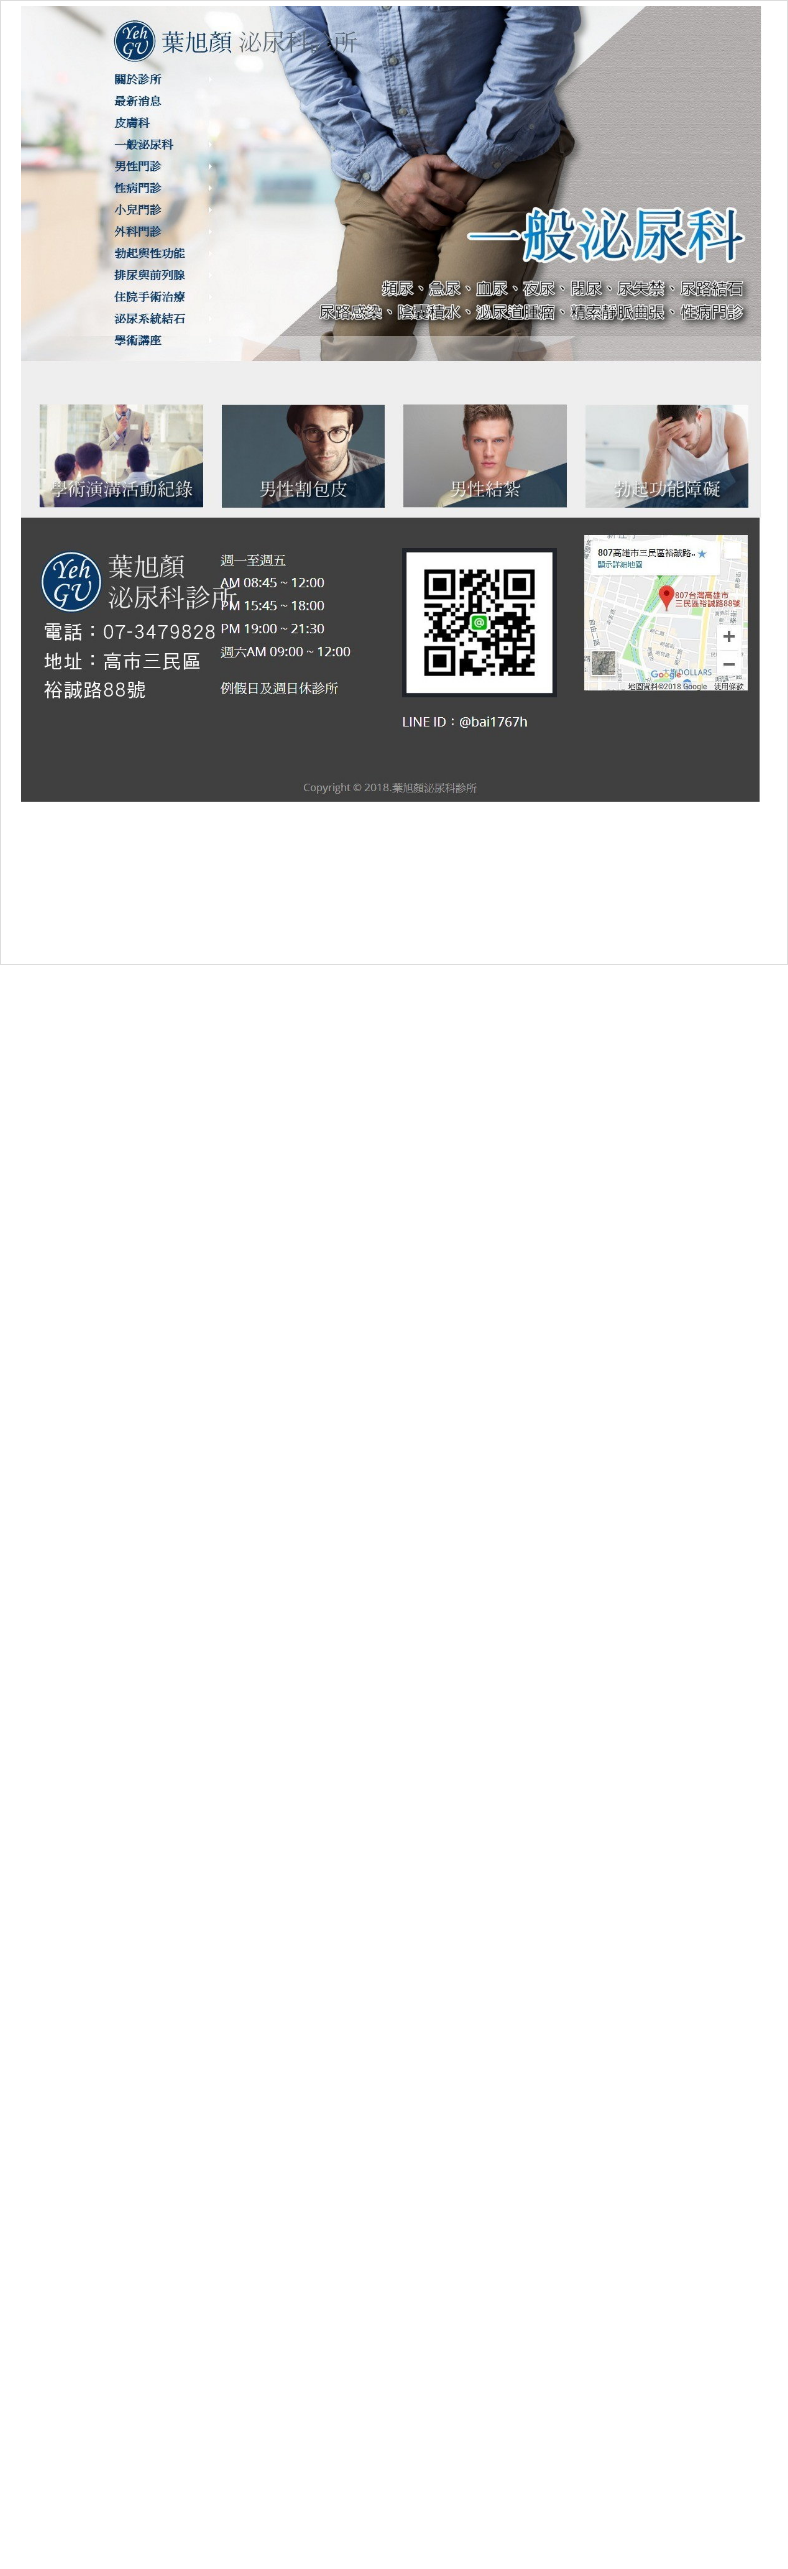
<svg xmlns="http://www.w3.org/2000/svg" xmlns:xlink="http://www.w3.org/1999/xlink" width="788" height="2569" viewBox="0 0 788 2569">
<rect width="100%" height="100%" fill="#ffffff"/>
<rect fill="#dddddd" x="0" y="0" width="788" height="1"/>
<rect fill="#dddddd" x="787" y="0" width="1" height="965"/>
<rect fill="#dddddd" x="0" y="964" width="788" height="1"/>
<rect fill="#dddddd" x="0" y="0" width="1" height="965"/>
<image xlink:href="image0.png" x="21" y="6" width="741" height="796"/>
</svg>
